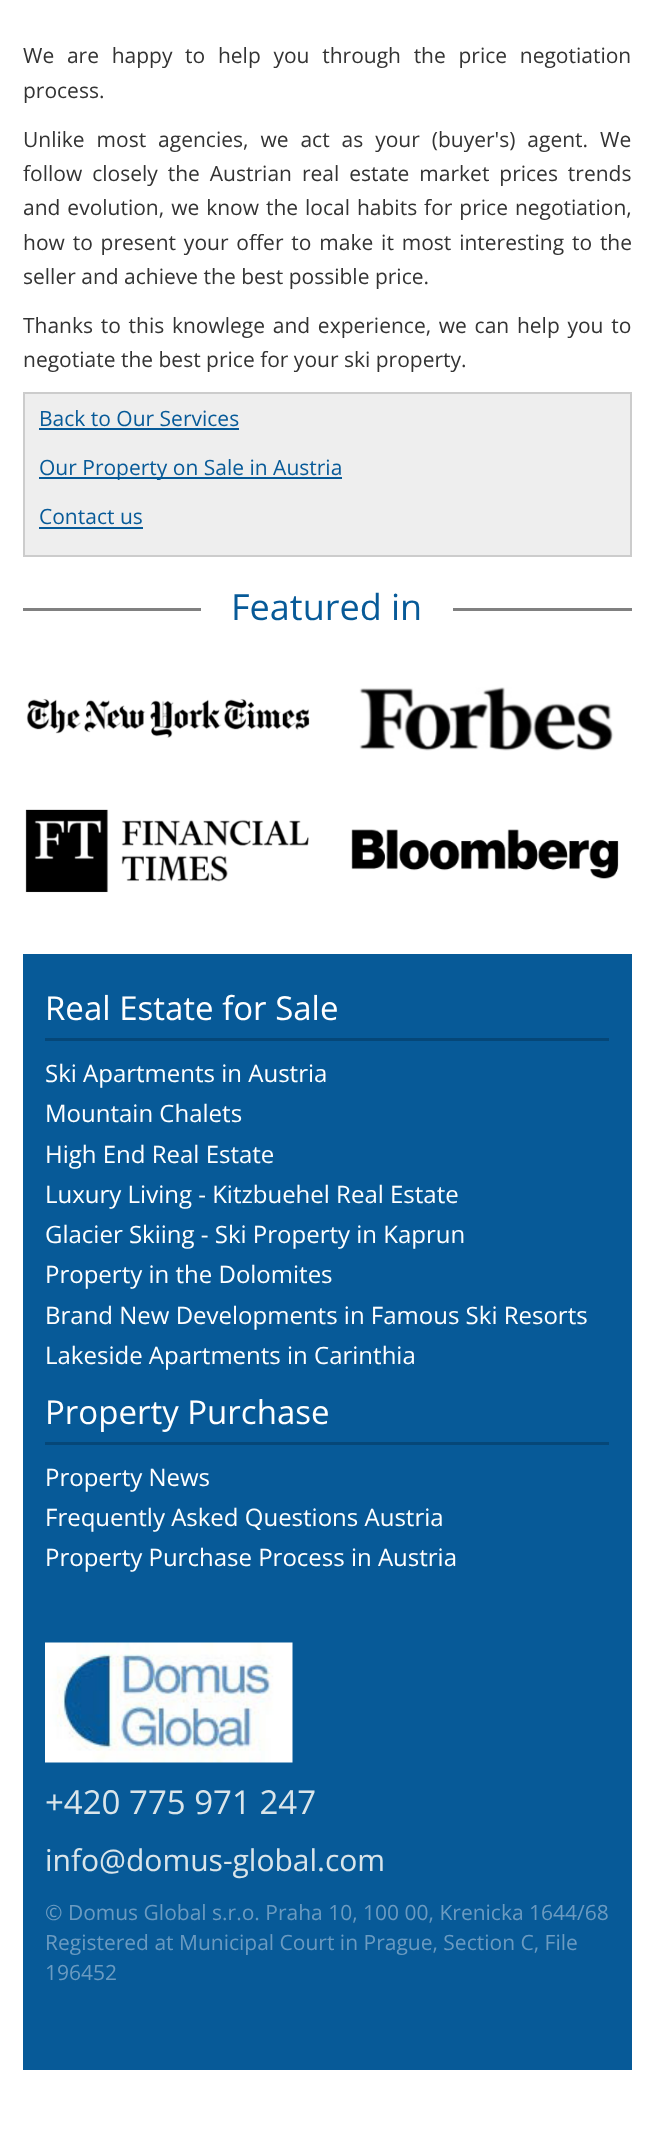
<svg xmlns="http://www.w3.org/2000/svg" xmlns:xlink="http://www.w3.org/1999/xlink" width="653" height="2129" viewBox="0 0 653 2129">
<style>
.cls-1{font:21px Open Sans;fill:#333333}
.cls-2{font:21px Open Sans;fill:#075a98}
.cls-3{font:36px Open Sans;fill:#075a98}
.cls-4{font:33px Open Sans;fill:#ffffff}
.cls-5{font:24px Open Sans;fill:#ffffff}
.cls-6{font:33px Open Sans;fill:#dae5ea}
.cls-7{font:30px Open Sans;fill:#dae5ea}
.cls-8{font:21px Open Sans;fill:#6b9bc1}
</style>
<rect width="100%" height="100%" fill="#ffffff"/>
<rect fill="#eeeeee" stroke="#cccccc" stroke-width="2" x="24" y="393" width="607" height="163"/>
<rect fill="#075a98" x="39" y="428" width="200" height="2"/>
<rect fill="#075a98" x="39" y="477" width="303" height="2"/>
<rect fill="#075a98" x="39" y="527" width="104" height="2"/>
<rect fill="#808080" x="23" y="608" width="609" height="3"/>
<rect fill="#ffffff" x="201" y="608" width="252" height="3"/>
<image xlink:href="image0.png" x="26" y="698" width="284" height="40"/>
<image xlink:href="image1.png" x="359" y="687" width="255" height="64"/>
<image xlink:href="image2.png" x="25" y="809" width="284" height="84"/>
<image xlink:href="image3.png" x="351" y="829" width="268" height="50"/>
<rect fill="#075a98" x="23" y="954" width="609" height="1116"/>
<rect fill="#054778" x="45" y="1038" width="564" height="3"/>
<rect fill="#054778" x="45" y="1442" width="564" height="3"/>
<image xlink:href="image4.png" x="45" y="1642" width="248" height="121"/>
<text class="cls-1"><tspan x="23" y="63" word-spacing="7.25">We are happy to help you through the price negotiation</tspan><tspan x="23" y="98">process.</tspan></text>
<text class="cls-1"><tspan x="23" y="147" word-spacing="6.5">Unlike most agencies, we act as your (buyer's) agent. We</tspan><tspan x="23" y="181" word-spacing="4.5">follow closely the Austrian real estate market prices trends</tspan><tspan x="23" y="215" word-spacing="1.5">and evolution, we know the local habits for price negotiation,</tspan><tspan x="23" y="250" word-spacing="2.4">how to present your offer to make it most interesting to the</tspan><tspan x="23" y="284">seller and achieve the best possible price.</tspan></text>
<text class="cls-1"><tspan x="23" y="333" word-spacing="2.25">Thanks to this knowlege and experience, we can help you to</tspan><tspan x="23" y="367">negotiate the best price for your ski property.</tspan></text>
<text class="cls-2" x="39" y="426">Back to Our Services</text>
<text class="cls-2" x="39" y="475">Our Property on Sale in Austria</text>
<text class="cls-2" x="39" y="524">Contact us</text>
<text class="cls-3" x="231" y="620">Featured in</text>
<text class="cls-4" x="45" y="1020">Real Estate for Sale</text>
<text class="cls-5"><tspan x="45" y="1082">Ski Apartments in Austria</tspan><tspan x="45" y="1122">Mountain Chalets</tspan><tspan x="45" y="1163">High End Real Estate</tspan><tspan x="45" y="1203">Luxury Living - Kitzbuehel Real Estate</tspan><tspan x="45" y="1243">Glacier Skiing - Ski Property in Kaprun</tspan><tspan x="45" y="1283">Property in the Dolomites</tspan><tspan x="45" y="1324">Brand New Developments in Famous Ski Resorts</tspan><tspan x="45" y="1364">Lakeside Apartments in Carinthia</tspan></text>
<text class="cls-4" x="45" y="1424">Property Purchase</text>
<text class="cls-5"><tspan x="45" y="1486">Property News</tspan><tspan x="45" y="1526">Frequently Asked Questions Austria</tspan><tspan x="45" y="1566">Property Purchase Process in Austria</tspan></text>
<text class="cls-6" x="45" y="1814">+420 775 971 247</text>
<text class="cls-7" x="45" y="1871">info@domus-global.com</text>
<text class="cls-8"><tspan x="45" y="1920">© Domus Global s.r.o. Praha 10, 100 00, Krenicka 1644/68</tspan><tspan x="45" y="1950">Registered at Municipal Court in Prague, Section C, File</tspan><tspan x="45" y="1980">196452</tspan></text>
</svg>
